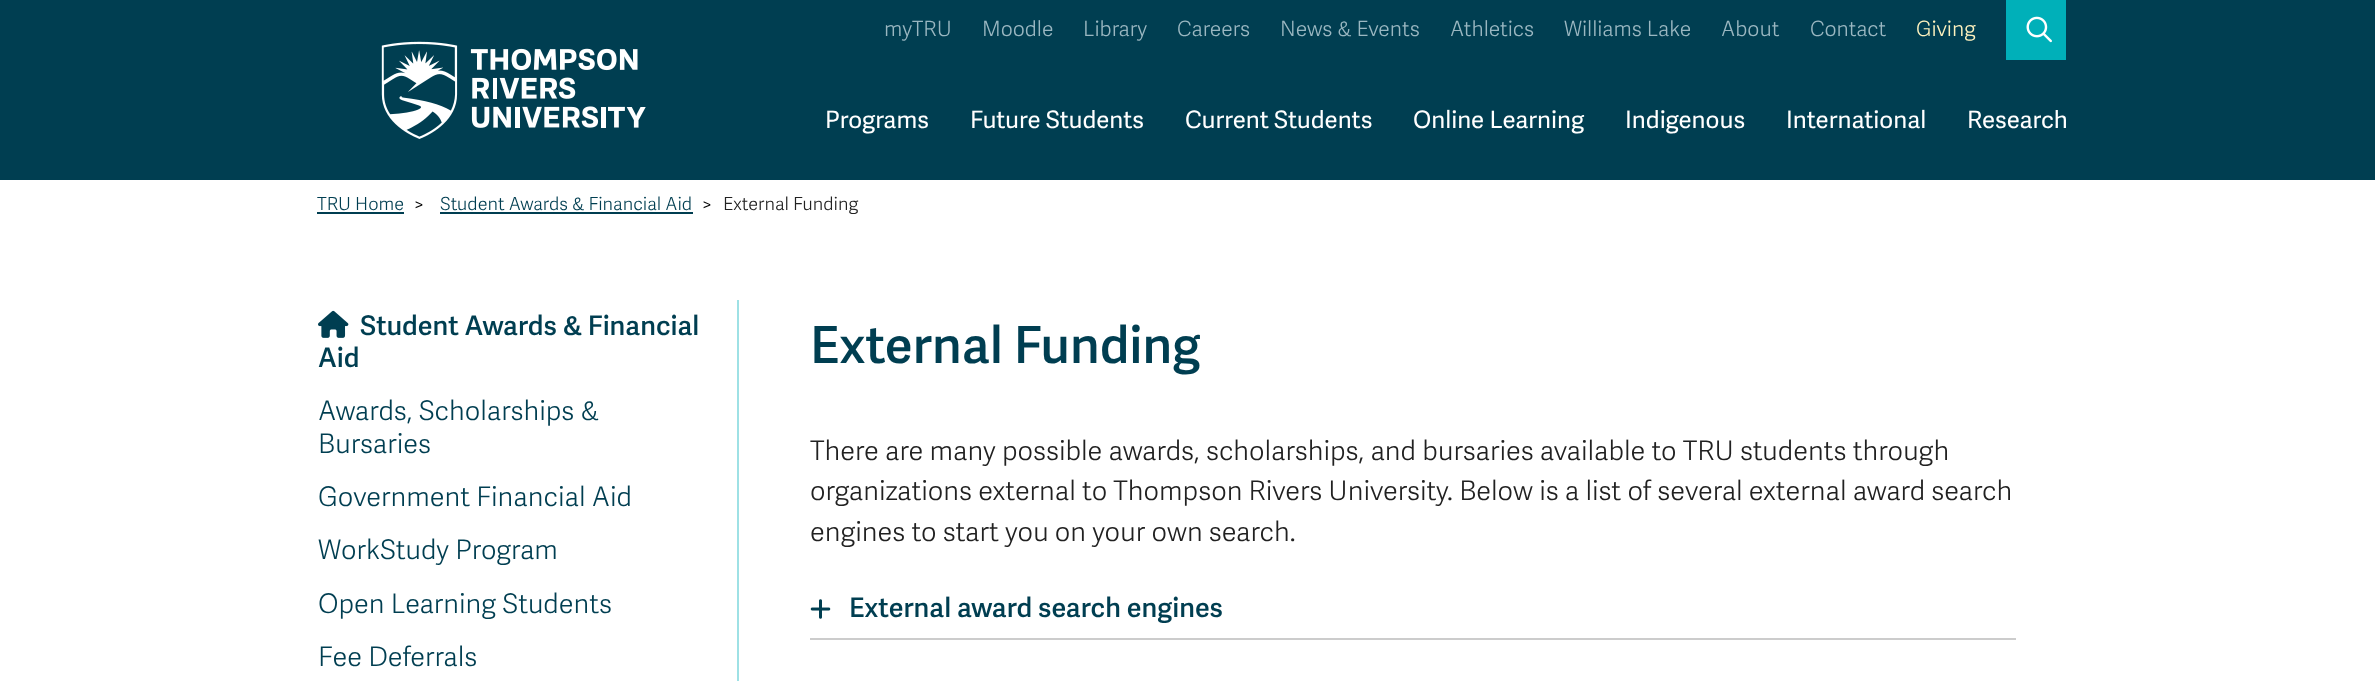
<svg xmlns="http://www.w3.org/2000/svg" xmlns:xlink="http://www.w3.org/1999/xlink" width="2375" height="681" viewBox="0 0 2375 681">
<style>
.cls-1{font:300 21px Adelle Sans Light;fill:#9ab7c1}
.cls-2{font:300 21px Adelle Sans Light;fill:#fff3bf}
.cls-3{font:24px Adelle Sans;fill:#ffffff}
.cls-4{font:300 18px Adelle Sans Light;fill:#003e51}
.cls-5{font:300 18px Adelle Sans Light;fill:#000000}
.cls-6{font:300 18px Adelle Sans Light;fill:#212121}
.cls-7{font:600 27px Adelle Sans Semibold;fill:#003e51}
.cls-8{font:300 27px Adelle Sans Light;fill:#003e51}
.cls-9{font:600 51px Adelle Sans Semibold;fill:#003e51}
.cls-10{font:300 27px Adelle Sans Light;fill:#212121}
</style>
<rect width="100%" height="100%" fill="#ffffff"/>
<rect fill="#003e51" x="0" y="0" width="2375" height="180"/>
<rect fill="#00b0b9" x="2006" y="0" width="60" height="60"/>
<image xlink:href="image0.png" x="2026" y="16" width="26" height="27"/>
<image xlink:href="image1.png" x="381" y="41" width="265" height="98"/>
<rect fill="#003e51" x="317" y="212" width="87" height="2"/>
<rect fill="#003e51" x="440" y="212" width="253" height="2"/>
<rect fill="#9ee1e5" x="737" y="300" width="2" height="381"/>
<image xlink:href="image2.png" x="318" y="310" width="31" height="28"/>
<rect fill="#cccccc" x="810" y="638" width="1206" height="2"/>
<image xlink:href="image3.png" x="810" y="599" width="21" height="20"/>
<text class="cls-1" x="884" y="36">myTRU</text>
<text class="cls-1" x="982" y="36">Moodle</text>
<text class="cls-1" x="1083" y="36">Library</text>
<text class="cls-1" x="1177" y="36">Careers</text>
<text class="cls-1" x="1280" y="36">News &amp; Events</text>
<text class="cls-1" x="1450" y="36">Athletics</text>
<text class="cls-1" x="1564" y="36">Williams Lake</text>
<text class="cls-1" x="1721" y="36">About</text>
<text class="cls-1" x="1810" y="36">Contact</text>
<text class="cls-2" x="1916" y="36">Giving</text>
<text class="cls-3" x="825" y="128">Programs</text>
<text class="cls-3" x="970" y="128">Future Students</text>
<text class="cls-3" x="1185" y="128">Current Students</text>
<text class="cls-3" x="1413" y="128">Online Learning</text>
<text class="cls-3" x="1625" y="128">Indigenous</text>
<text class="cls-3" x="1786" y="128">International</text>
<text class="cls-3" x="1967" y="128">Research</text>
<text class="cls-4" x="317" y="210">TRU Home</text>
<text class="cls-5" x="414" y="210">&gt;</text>
<text class="cls-4" x="440" y="210">Student Awards &amp; Financial Aid</text>
<text class="cls-5" x="702" y="210">&gt;</text>
<text class="cls-6" x="723" y="210">External Funding</text>
<text class="cls-7" x="360" y="335">Student Awards &amp; Financial</text>
<text class="cls-7" x="318" y="367">Aid</text>
<text class="cls-8"><tspan x="318" y="420">Awards, Scholarships &amp;</tspan><tspan x="318" y="453">Bursaries</tspan><tspan x="318" y="506">Government Financial Aid</tspan><tspan x="318" y="559">WorkStudy Program</tspan></text>
<text class="cls-8"><tspan x="318" y="613">Open Learning Students</tspan><tspan x="318" y="666">Fee Deferrals</tspan></text>
<text class="cls-9" x="810" y="363">External Funding</text>
<text class="cls-10"><tspan x="810" y="460">There are many possible awards, scholarships, and bursaries available to TRU students through</tspan><tspan x="810" y="500">organizations external to Thompson Rivers University. Below is a list of several external award search</tspan><tspan x="810" y="541">engines to start you on your own search.</tspan></text>
<text class="cls-7" x="849" y="617">External award search engines</text>
</svg>
